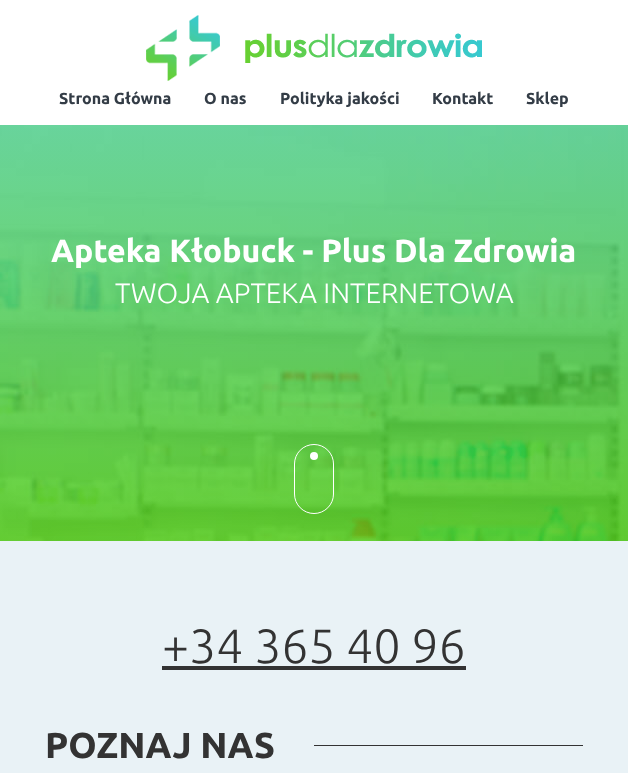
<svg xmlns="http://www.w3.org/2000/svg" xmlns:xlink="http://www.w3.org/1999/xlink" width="628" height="773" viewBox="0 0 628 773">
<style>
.cls-1{font:bold 16px Ubuntu;fill:#333c46}
.cls-2{font:bold 32px Ubuntu;fill:#ffffff}
.cls-3{font:300 28px Ubuntu;fill:#ffffff}
.cls-4{font:300 48px Ubuntu;fill:#333333}
.cls-5{font:bold 36px Ubuntu;fill:#333333}
</style>
<rect width="100%" height="100%" fill="#e9f2f6"/>
<rect fill="#ffffff" x="0" y="0" width="628" height="125"/>
<image xlink:href="image0.png" x="146" y="15" width="336" height="66"/>
<image xlink:href="image1.png" x="0" y="125" width="628" height="416"/>
<rect fill="none" stroke="#ffffff" x="294.5" y="444.5" width="39" height="69" rx="19.5"/>
<circle fill="#ffffff" cx="314" cy="456" r="4"/>
<rect fill="#333333" x="162" y="666" width="304" height="4"/>
<rect fill="#333333" x="314" y="745" width="269" height="1"/>
<text class="cls-1" x="59" y="104">Strona Główna</text>
<text class="cls-1" x="204" y="104">O nas</text>
<text class="cls-1" x="280" y="104">Polityka jakości</text>
<text class="cls-1" x="432" y="104">Kontakt</text>
<text class="cls-1" x="526" y="104">Sklep</text>
<text class="cls-2" x="51" y="262">Apteka Kłobuck - Plus Dla Zdrowia</text>
<text class="cls-3" x="115" y="303">TWOJA APTEKA INTERNETOWA</text>
<text class="cls-4" x="162" y="663">+34 365 40 96</text>
<text class="cls-5" x="45" y="758">POZNAJ NAS</text>
</svg>
